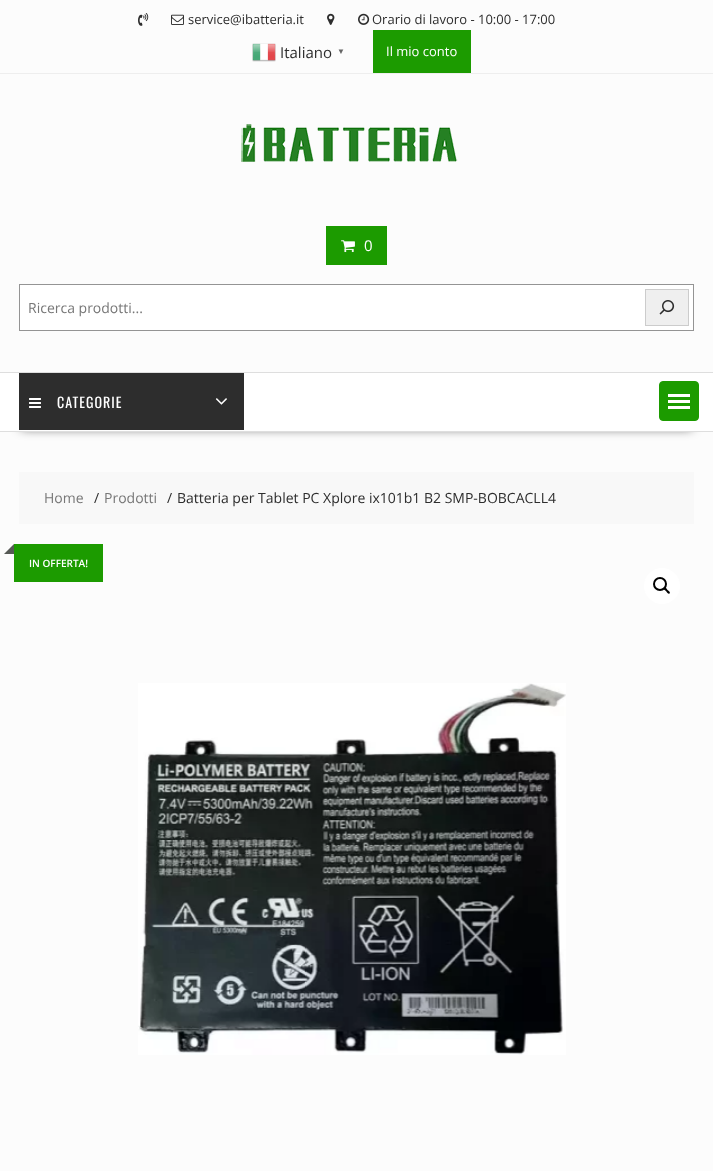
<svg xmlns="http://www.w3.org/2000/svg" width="713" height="1171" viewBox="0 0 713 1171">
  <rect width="100%" height="100%" fill="rgb(252,252,252)"/>
  <rect x="0" y="73" width="713" height="1" fill="rgb(238,238,238)"/>
  <image x="138" y="13" width="11" height="13" href="pic1.png"/>
  <image x="171" y="14" width="13" height="11" href="pic2.png"/>
  <text x="188" y="24" font-family="Open Sans" font-size="13" fill="rgb(45,45,45)">service@ibatteria.it</text>
  <image x="327" y="13" width="8" height="12" href="pic3.png"/>
  <image x="358" y="13" width="12" height="12" href="pic4.png"/>
  <text x="372" y="24" font-family="Open Sans" font-size="13" fill="rgb(45,45,45)">Orario di lavoro - 10:00 - 17:00</text>
  <image x="252" y="43" width="24" height="19" href="pic5.png"/>
  <text x="280" y="58" font-family="Open Sans" font-size="15" fill="rgb(45,45,45)">Italiano</text>
  <text x="337" y="54" font-family="Liberation Sans" font-size="8" font-weight="bold" fill="rgb(102,102,102)">▼</text>
  <rect x="373" y="30" width="98" height="43" fill="rgb(28,155,0)"/>
  <text x="386" y="56" font-family="Open Sans" font-size="13" fill="rgb(255,255,255)">Il mio conto</text>
  <image x="241" y="124" width="217" height="38" href="pic6.png"/>
  <rect x="326" y="226" width="61" height="39" fill="rgb(28,155,0)"/>
  <image x="341" y="240" width="14" height="13" href="pic7.png"/>
  <text x="364" y="251" font-family="Open Sans" font-size="15" fill="rgb(255,255,255)">0</text>
  <rect x="19.5" y="284.5" width="674" height="46" fill="rgb(255,255,255)" stroke="rgb(148,148,148)"/>
  <text x="28" y="313" font-family="Open Sans" font-size="14" fill="rgb(119,119,119)">Ricerca prodotti...</text>
  <rect x="645.5" y="289.5" width="43" height="36" fill="rgb(239,239,239)" stroke="rgb(204,204,204)"/>
  <image x="659" y="300" width="16" height="15" href="pic8.png"/>
  <rect x="21" y="410" width="671" height="18" fill="rgba(0,0,0,0.75)" filter="blur(5.5px)"/>
  <rect x="0" y="373" width="713" height="58" fill="rgb(255,255,255)"/>
  <rect x="0" y="372" width="713" height="1" fill="rgb(222,222,222)"/>
  <rect x="0" y="431" width="713" height="1" fill="rgb(222,222,222)"/>
  <rect x="19" y="373" width="225" height="57" fill="rgb(45,45,45)"/>
  <image x="29" y="398" width="12" height="10" href="pic9.png"/>
  <text x="57" y="408" font-family="Oswald" font-size="14" letter-spacing="1" fill="rgb(255,255,255)">CATEGORIE</text>
  <image x="215" y="398" width="12" height="7" href="pic10.png"/>
  <rect x="659.5" y="381.5" width="39" height="39" rx="3.5" fill="rgb(28,155,0)" stroke="rgb(28,155,0)"/>
  <rect x="668" y="406" width="22" height="3" fill="rgb(255,255,255)"/>
  <rect x="668" y="400" width="22" height="3" fill="rgb(255,255,255)"/>
  <rect x="668" y="394" width="22" height="3" fill="rgb(255,255,255)"/>
  <rect x="19" y="472" width="675" height="52" fill="rgb(248,248,248)"/>
  <text x="44" y="503" font-family="Open Sans" font-size="14" fill="rgb(119,119,119)">Home</text>
  <text x="94" y="503" font-family="Open Sans" font-size="14" fill="rgb(45,45,45)">/</text>
  <text x="104" y="503" font-family="Open Sans" font-size="14" fill="rgb(119,119,119)">Prodotti</text>
  <g font-family="Open Sans" font-size="14" fill="rgb(45,45,45)">
    <text x="167" y="503">/</text>
    <text x="177" y="503">Batteria per Tablet PC Xplore ix101b1 B2 SMP-BOBCACLL4</text>
  </g>
  <rect x="14" y="544" width="89" height="38" fill="rgb(28,155,0)"/>
  <path d="M14 544V554H4Z" fill="rgb(86,89,85)"/>
  <text x="29" y="567" font-family="Open Sans" font-size="10" font-weight="600" fill="rgb(255,255,255)">IN OFFERTA!</text>
  <circle cx="662" cy="586" r="18" fill="rgb(255,255,255)"/>
  <circle cx="660" cy="584" r="6" fill="none" stroke="rgb(0,0,0)" stroke-width="2"/>
  <path d="M664 587.5C665 586.5 667 589 667.5 590C668 590.5 671 592 669.5 593.5C668.5 594.5 666.5 592 666 591C665.5 590.5 662.5 589 664 587.5Z" fill="rgb(0,0,0)"/>
  <image x="138" y="683" width="428" height="372" href="pic11.png"/>
</svg>
